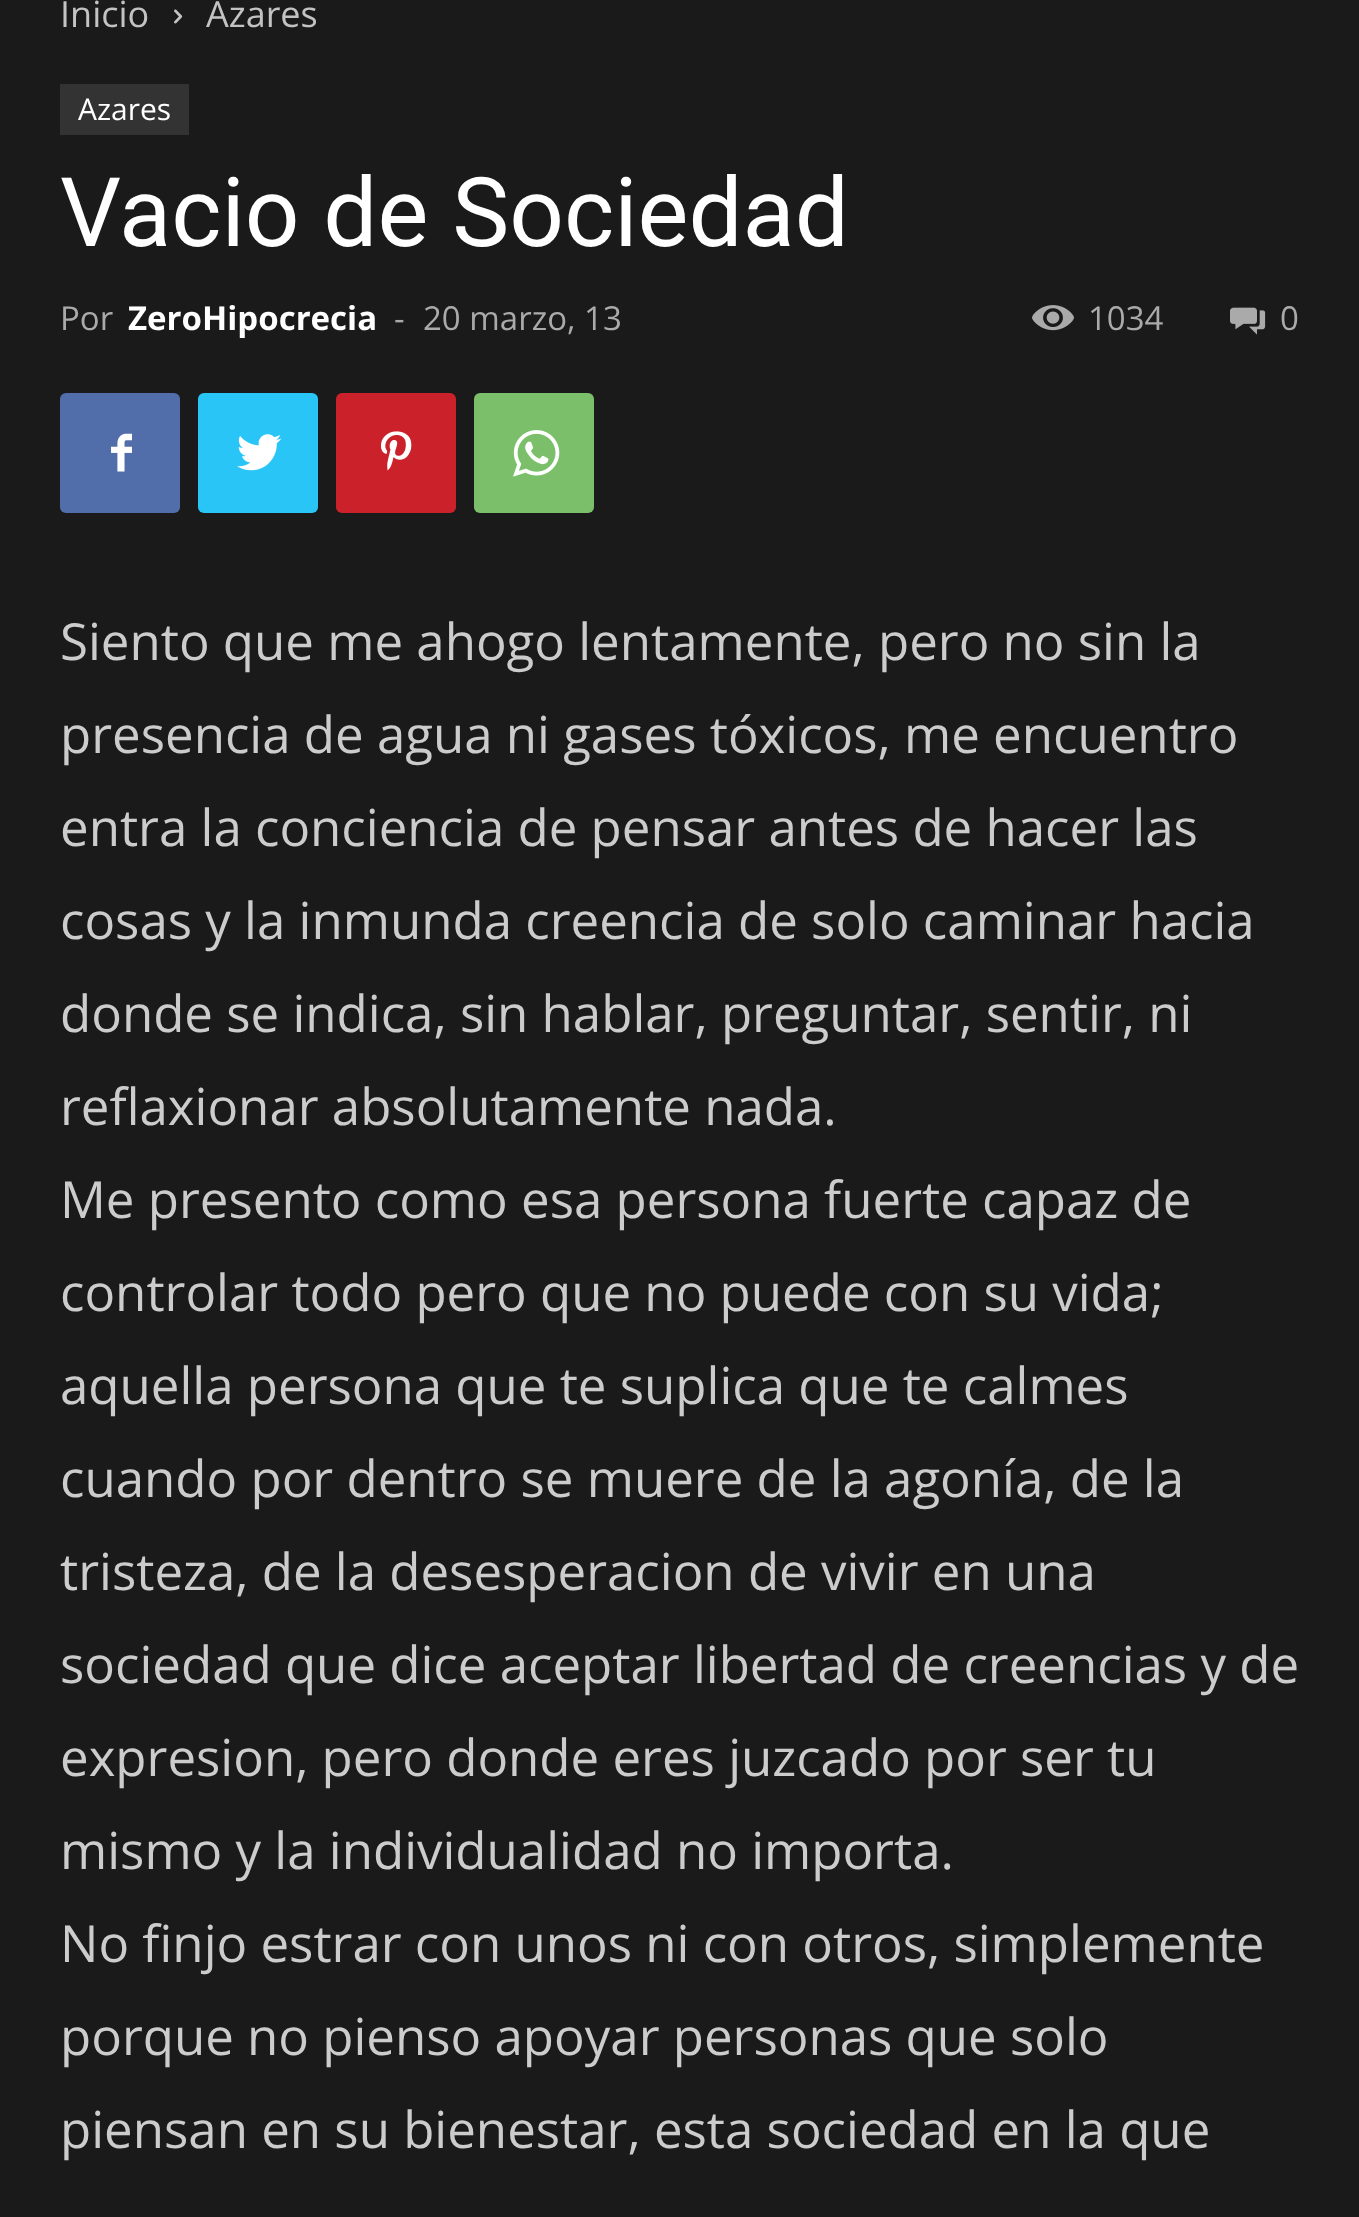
<svg xmlns="http://www.w3.org/2000/svg" width="1359" height="2217" viewBox="0 0 1359 2217">
  <rect width="100%" height="100%" fill="rgb(26,26,26)"/>
  <text x="60" y="27" font-family="Open Sans" font-size="36" fill="rgb(195,195,195)">Inicio</text>
  <image x="174" y="9" width="9" height="15" href="pic1.png"/>
  <text x="206" y="27" font-family="Open Sans" font-size="36" fill="rgb(195,195,195)">Azares</text>
  <rect x="60" y="84" width="129" height="51" fill="rgb(51,51,51)"/>
  <text x="78" y="120" font-family="Open Sans" font-size="30" fill="rgb(255,255,255)">Azares</text>
  <text x="60" y="246" font-family="Roboto" font-size="96" fill="rgb(255,255,255)">Vacio de Sociedad</text>
  <text x="60" y="330" font-family="Open Sans" font-size="33" fill="rgb(170,170,170)">Por</text>
  <text x="128" y="330" font-family="Open Sans" font-size="33" font-weight="bold" fill="rgb(255,255,255)">ZeroHipocrecia</text>
  <g font-family="Open Sans" font-size="33" fill="rgb(170,170,170)">
    <text x="394" y="330">-</text>
    <text x="423" y="330">20 marzo, 13</text>
  </g>
  <image x="1032" y="305" width="42" height="26" href="pic2.png"/>
  <text x="1088" y="330" font-family="Open Sans" font-size="33" fill="rgb(170,170,170)">1034</text>
  <image x="1230" y="307" width="36" height="28" href="pic3.png"/>
  <text x="1280" y="330" font-family="Open Sans" font-size="33" fill="rgb(170,170,170)">0</text>
  <rect x="60" y="393" width="120" height="120" rx="6" fill="rgb(81,110,171)"/>
  <image x="111" y="433" width="21" height="39" href="pic4.png"/>
  <rect x="198" y="393" width="120" height="120" rx="6" fill="rgb(41,197,246)"/>
  <image x="237" y="434" width="45" height="37" href="pic5.png"/>
  <rect x="336" y="393" width="120" height="120" rx="6" fill="rgb(202,33,42)"/>
  <image x="381" y="431" width="31" height="40" href="pic6.png"/>
  <rect x="474" y="393" width="120" height="120" rx="6" fill="rgb(123,191,106)"/>
  <image x="513" y="430" width="47" height="47" href="pic7.png"/>
  <g font-family="Open Sans" font-size="51" fill="rgb(204,204,204)">
    <text>
      <tspan x="60" y="660">Siento que me ahogo lentamente, pero no sin la</tspan>
      <tspan x="60" y="753">presencia de agua ni gases tóxicos, me encuentro</tspan>
      <tspan x="60" y="846">entra la conciencia de pensar antes de hacer las</tspan>
      <tspan x="60" y="939">cosas y la inmunda creencia de solo caminar hacia</tspan>
      <tspan x="60" y="1032">donde se indica, sin hablar, preguntar, sentir, ni</tspan>
      <tspan x="60" y="1125">reflaxionar absolutamente nada.</tspan>
      <tspan x="60" y="1218">Me presento como esa persona fuerte capaz de</tspan>
      <tspan x="60" y="1311">controlar todo pero que no puede con su vida;</tspan>
      <tspan x="60" y="1404">aquella persona que te suplica que te calmes</tspan>
      <tspan x="60" y="1497">cuando por dentro se muere de la agonía, de la</tspan>
      <tspan x="60" y="1590">tristeza, de la desesperacion de vivir en una</tspan>
      <tspan x="60" y="1683">sociedad que dice aceptar libertad de creencias y de</tspan>
      <tspan x="60" y="1776">expresion, pero donde eres juzcado por ser tu</tspan>
      <tspan x="60" y="1869">mismo y la individualidad no importa.</tspan>
      <tspan x="60" y="1962">No finjo estrar con unos ni con otros, simplemente</tspan>
      <tspan x="60" y="2055">porque no pienso apoyar personas que solo</tspan>
      <tspan x="60" y="2148">piensan en su bienestar, esta sociedad en la que</tspan>
    </text>
  </g>
</svg>
